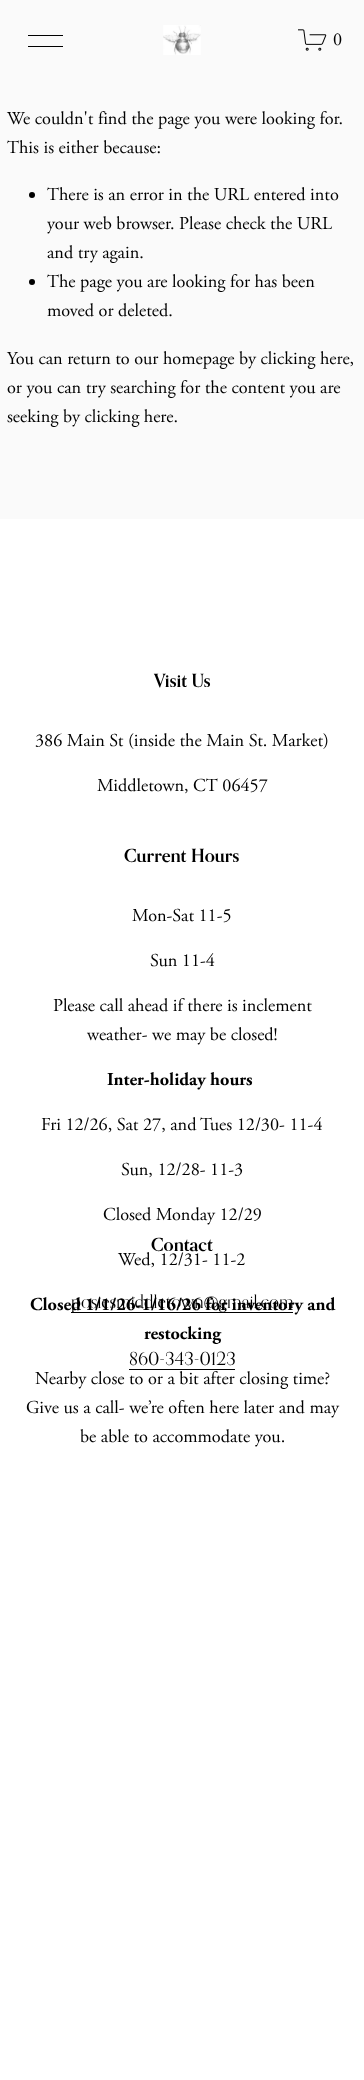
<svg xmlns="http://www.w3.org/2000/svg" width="364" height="2080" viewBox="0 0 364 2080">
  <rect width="100%" height="100%" fill="rgb(250,250,250)"/>
  <rect x="28" y="35" width="35" height="1" fill="rgb(0,0,0)"/>
  <rect x="28" y="46" width="35" height="1" fill="rgb(0,0,0)"/>
  <image x="163" y="25" width="38" height="30" href="pic1.png"/>
  <image x="298" y="29" width="29" height="22" href="pic2.png"/>
  <g font-family="Adobe Garamond" font-size="18.2" fill="rgb(0,0,0)">
    <text x="333" y="45">0</text>
    <text>
      <tspan x="7" y="124">We couldn't find the page you were looking for.</tspan>
      <tspan x="7" y="153">This is either because:</tspan>
    </text>
  </g>
  <circle cx="32" cy="195" r="3" fill="rgb(0,0,0)"/>
  <g font-family="Adobe Garamond" font-size="18.2" fill="rgb(0,0,0)">
    <text>
      <tspan x="47" y="200">There is an error in the URL entered into</tspan>
      <tspan x="47" y="229">your web browser. Please check the URL</tspan>
      <tspan x="47" y="258">and try again.</tspan>
    </text>
  </g>
  <circle cx="32" cy="282" r="3" fill="rgb(0,0,0)"/>
  <g font-family="Adobe Garamond" font-size="18.2" fill="rgb(0,0,0)">
    <text>
      <tspan x="47" y="287">The page you are looking for has been</tspan>
      <tspan x="47" y="316">moved or deleted.</tspan>
    </text>
    <text>
      <tspan x="7" y="364">You can return to our homepage by clicking here,</tspan>
      <tspan x="7" y="393">or you can try searching for the content you are</tspan>
      <tspan x="7" y="422">seeking by clicking here.</tspan>
    </text>
  </g>
  <rect x="0" y="519" width="364" height="1561" fill="rgb(255,255,255)"/>
  <text x="154" y="687" font-family="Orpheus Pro" font-size="18.2" font-weight="bold" fill="rgb(0,0,0)">Visit Us</text>
  <g font-family="Adobe Garamond" font-size="18.2" fill="rgb(0,0,0)">
    <text x="35" y="746">386 Main St (inside the Main St. Market)</text>
    <text x="97" y="791">Middletown, CT 06457</text>
  </g>
  <text x="124" y="862" font-family="Orpheus Pro" font-size="18.2" font-weight="bold" fill="rgb(0,0,0)">Current Hours</text>
  <g font-family="Adobe Garamond" font-size="18.2" fill="rgb(0,0,0)">
    <text x="132" y="921">Mon-Sat 11-5</text>
    <text x="150" y="966">Sun 11-4</text>
    <text x="53" y="1011">Please call ahead if there is inclement</text>
    <text x="87" y="1040">weather- we may be closed!</text>
  </g>
  <text x="107" y="1085" font-family="Adobe Garamond" font-size="18.2" font-weight="bold" fill="rgb(0,0,0)">Inter-holiday hours</text>
  <g font-family="Adobe Garamond" font-size="18.2" fill="rgb(0,0,0)">
    <text x="41" y="1130">Fri 12/26, Sat 27, and Tues 12/30- 11-4</text>
    <text x="121" y="1175">Sun, 12/28- 11-3</text>
    <text x="103" y="1220">Closed Monday 12/29</text>
    <text x="118" y="1265">Wed, 12/31- 11-2</text>
  </g>
  <g font-family="Adobe Garamond" font-size="18.2" font-weight="bold" fill="rgb(0,0,0)">
    <text x="30" y="1310">Closed 1/1/26-1/16/26 for inventory and</text>
    <text x="144" y="1339">restocking</text>
  </g>
  <g font-family="Adobe Garamond" font-size="18.2" fill="rgb(0,0,0)">
    <text x="35" y="1384">Nearby close to or a bit after closing time?</text>
    <text x="26" y="1413">Give us a call- we’re often here later and may</text>
    <text x="80" y="1442">be able to accommodate you.</text>
  </g>
  <text x="151" y="1251" font-family="Orpheus Pro" font-size="18.2" font-weight="bold" fill="rgb(0,0,0)">Contact</text>
  <rect x="71" y="1312" width="222" height="1" fill="rgb(0,0,0)"/>
  <g font-family="Orpheus Pro" font-size="18.2" fill="rgb(0,0,0)">
    <text x="71" y="1308">posiesmiddletown@gmail.com</text>
    <text x="129" y="1365">860-343-0123</text>
  </g>
  <rect x="129" y="1369" width="106" height="1" fill="rgb(0,0,0)"/>
</svg>
